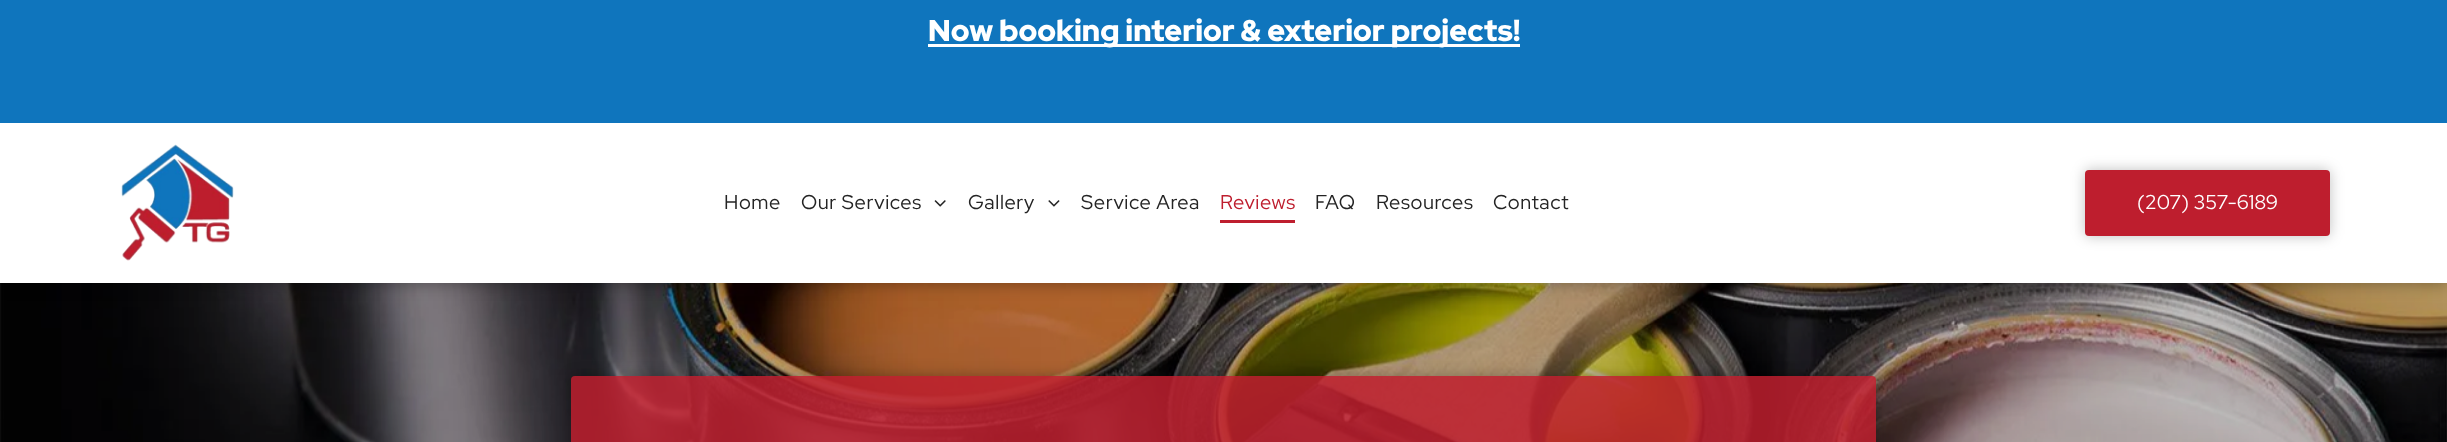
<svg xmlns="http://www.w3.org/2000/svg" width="2447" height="442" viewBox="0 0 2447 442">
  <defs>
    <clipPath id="clip1"><path d="M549 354H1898V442H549ZM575 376H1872C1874 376 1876 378 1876 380V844C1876 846 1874 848 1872 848H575C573 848 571 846 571 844V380C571 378 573 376 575 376Z" clip-rule="evenodd"/></clipPath>
  </defs>
  <rect width="100%" height="100%" fill="rgb(255,255,255)"/>
  <image x="0" y="283" width="2447" height="159" href="pic4.png"/>
  <rect x="0" y="4" width="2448" height="282" fill="rgba(0,0,0,0.25)" filter="blur(7px)"/>
  <rect x="0" y="123" width="2447" height="160" fill="rgb(255,255,255)"/>
  <rect x="0" y="0" width="2447" height="123" fill="rgb(15,117,189)"/>
  <rect x="928" y="44" width="592" height="3" fill="rgb(255,255,255)"/>
  <text x="928" y="41" font-family="Red Hat Display" font-size="30" font-weight="900" fill="rgb(255,255,255)">Now booking interior &amp; exterior projects!</text>
  <image x="121" y="144" width="113" height="117" href="pic1.png"/>
  <g font-family="Red Hat Display" font-size="20" letter-spacing="0.6" fill="rgb(36,36,36)">
    <text x="724" y="209">Home</text>
    <text x="801" y="209">Our Services</text>
  </g>
  <image x="934" y="200" width="12" height="7" href="pic2.png"/>
  <text x="968" y="209" font-family="Red Hat Display" font-size="20" letter-spacing="0.6" fill="rgb(36,36,36)">Gallery</text>
  <image x="1048" y="200" width="12" height="7" href="pic3.png"/>
  <text x="1081" y="209" font-family="Red Hat Display" font-size="20" letter-spacing="0.6" fill="rgb(36,36,36)">Service Area</text>
  <text x="1220" y="209" font-family="Red Hat Display" font-size="20" letter-spacing="0.6" fill="rgb(190,30,46)">Reviews</text>
  <rect x="1220" y="220" width="75" height="3" fill="rgb(190,30,46)"/>
  <g font-family="Red Hat Display" font-size="20" letter-spacing="0.6" fill="rgb(36,36,36)">
    <text x="1315" y="209">FAQ</text>
    <text x="1376" y="209">Resources</text>
    <text x="1493" y="209">Contact</text>
  </g>
  <rect x="2085" y="170" width="245" height="66" rx="4" fill="rgba(0,0,0,0.25)" filter="blur(7px)"/>
  <rect x="2085" y="170" width="245" height="66" rx="4" fill="rgb(190,30,46)"/>
  <text x="2137" y="209" font-family="Red Hat Display" font-size="20" fill="rgb(255,255,255)">(207) 357-6189</text>
  <g clip-path="url(#clip1)">
    <rect x="571" y="376" width="1305" height="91" rx="4" fill="rgba(0,0,0,0.25)" filter="blur(7px)"/>
  </g>
  <rect x="571" y="376" width="1305" height="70" rx="4" fill="rgba(190,30,46,0.85)"/>
</svg>
